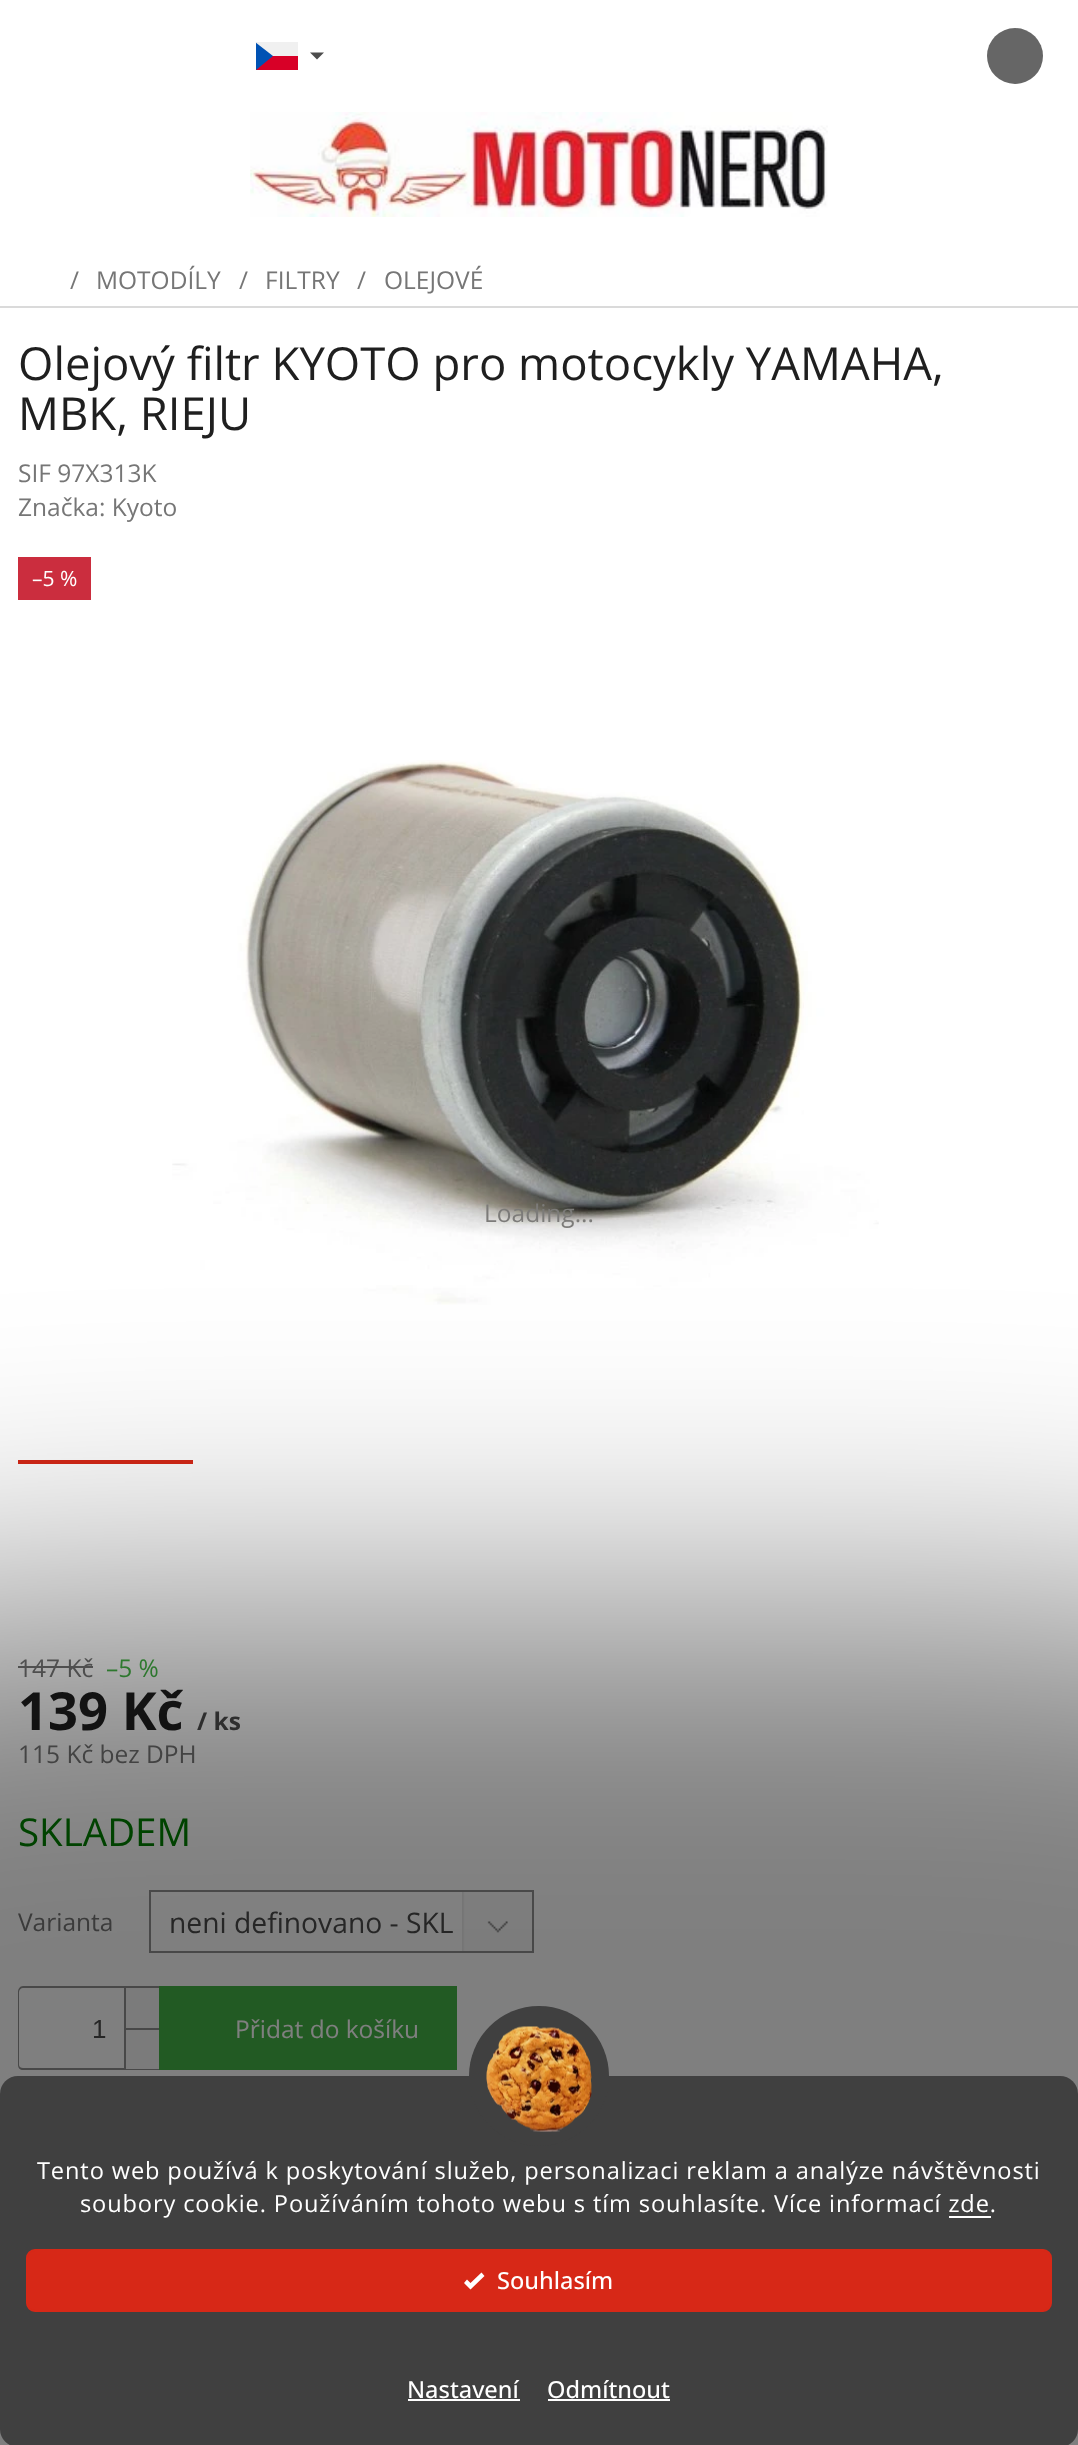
<svg xmlns="http://www.w3.org/2000/svg" width="1078" height="2445" viewBox="0 0 1078 2445">
  <rect width="100%" height="100%" fill="rgb(255,255,255)"/>
  <rect x="256" y="42" width="17" height="28" fill="rgb(0,82,180)"/>
  <path d="M298 56V70H256L273 56Z" fill="rgb(216,0,39)"/>
  <path d="M298 42V56H273L255 42Z" fill="rgb(240,240,240)"/>
  <path d="M310 52.5H324L317 59.5Z" fill="rgb(77,77,77)"/>
  <circle cx="1015" cy="56" r="28" fill="rgb(102,102,102)"/>
  <image x="250" y="112" width="578" height="105" href="pic1.png"/>
  <rect x="0" y="306" width="1078" height="2" fill="rgb(218,218,218)"/>
  <g font-family="Open Sans" font-size="24.5" fill="rgb(118,118,118)">
    <text x="70" y="289">/</text>
    <text x="96" y="289">MOTODÍLY</text>
    <text x="239" y="289">/</text>
    <text x="265" y="289">FILTRY</text>
    <text x="357" y="289">/</text>
    <text x="384" y="289">OLEJOVÉ</text>
  </g>
  <g font-family="Open Sans" font-size="45.5" fill="rgb(31,31,31)">
    <text>
      <tspan x="18" y="380">Olejový filtr KYOTO pro motocykly YAMAHA,</tspan>
      <tspan x="18" y="430">MBK, RIEJU</tspan>
    </text>
  </g>
  <g font-family="Open Sans" font-size="24.5" fill="rgb(118,118,118)">
    <text>
      <tspan x="18" y="482">SIF 97X313K</tspan>
      <tspan x="18" y="516">Značka: Kyoto</tspan>
    </text>
  </g>
  <rect x="18" y="557" width="73" height="43" fill="rgb(203,45,62)"/>
  <text x="32" y="586" font-family="Open Sans" font-size="21" fill="rgb(255,255,255)">–5 %</text>
  <image x="172" y="760" width="707" height="545" href="pic2.png"/>
  <text x="484" y="1222" font-family="Open Sans" font-size="24.5" fill="rgb(124,123,121)">Loading...</text>
  <rect x="18" y="1460" width="175" height="4" fill="rgb(215,40,23)"/>
  <text x="18" y="1677" font-family="Open Sans" font-size="24.5" fill="rgb(118,118,118)">147 Kč</text>
  <rect x="18" y="1666" width="75" height="2" fill="rgb(118,118,118)"/>
  <text x="106" y="1677" font-family="Open Sans" font-size="24.5" fill="rgb(69,181,70)">–5 %</text>
  <text x="18" y="1730" font-family="Open Sans" font-size="52.5" font-weight="bold" fill="rgb(31,31,31)">139 Kč</text>
  <text x="197" y="1730" font-family="Open Sans" font-size="24.5" font-weight="bold" fill="rgb(77,77,77)">/ ks</text>
  <text x="18" y="1763" font-family="Open Sans" font-size="24.5" fill="rgb(118,118,118)">115 Kč bez DPH</text>
  <text x="18" y="1846" font-family="Open Sans" font-size="38.5" fill="rgb(0,128,0)">SKLADEM</text>
  <text x="18" y="1931" font-family="Open Sans" font-size="24.5" fill="rgb(118,118,118)">Varianta</text>
  <image x="462" y="1892" width="70" height="59" href="pic3.png"/>
  <rect x="150" y="1891" width="383" height="61" fill="none" stroke="rgb(145,145,145)" stroke-width="2"/>
  <text x="169" y="1933" font-family="Open Sans" font-size="28.25" fill="rgb(77,77,77)">neni definovano - SKL</text>
  <path d="M23 1986H159V2070H23C20 2070 18 2068 18 2065V1992C18 1989 20 1986 23 1986ZM23 1988H159V2068H23C21 2068 19 2067 19 2065V1992C19 1990 21 1988 23 1988Z" fill="rgb(145,145,145)" fill-rule="evenodd"/>
  <text x="92" y="2038" font-family="Liberation Sans" font-size="26" fill="rgb(77,77,77)">1</text>
  <rect x="126" y="1988" width="33" height="40" fill="rgb(246,246,246)"/>
  <rect x="124" y="1988" width="2" height="40" fill="rgb(145,145,145)"/>
  <rect x="126" y="2030" width="33" height="39" fill="rgb(246,246,246)"/>
  <rect x="124" y="2028" width="35" height="2" fill="rgb(145,145,145)"/>
  <rect x="124" y="2028" width="2" height="41" fill="rgb(145,145,145)"/>
  <rect x="159" y="1986" width="298" height="84" fill="rgb(69,181,70)"/>
  <text x="235" y="2038" font-family="Open Sans" font-size="24.5" fill="rgb(255,255,255)">Přidat do košíku</text>
  <rect x="-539" y="1607" width="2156" height="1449" rx="557" fill="rgba(0,0,0,0.5)" filter="blur(140px)"/>
  <rect x="0" y="2076" width="1078" height="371" rx="18" fill="rgb(64,64,64)"/>
  <circle cx="539" cy="2076" r="70" fill="rgb(64,64,64)"/>
  <image x="486" y="2026" width="106" height="106" href="pic4.png"/>
  <g font-family="Open Sans" font-size="23.6" letter-spacing="0.88" fill="rgb(255,255,255)">
    <text x="37" y="2179">Tento web používá k poskytování služeb, personalizaci reklam a analýze návštěvnosti</text>
    <text x="80" y="2212">soubory cookie. Používáním tohoto webu s tím souhlasíte. Více informací zde.</text>
  </g>
  <rect x="949" y="2216" width="42" height="2" fill="rgb(255,255,255)"/>
  <rect x="27" y="2250" width="1024" height="61" rx="8" fill="rgb(215,40,23)" stroke="rgb(215,40,23)" stroke-width="2"/>
  <path d="M481.5 2272.5L470.5 2283L467 2279.5L464 2283L470.5 2289.5L484.5 2276Z" fill="rgb(255,255,255)"/>
  <g font-family="Open Sans" font-size="23.6" font-weight="500" fill="rgb(255,255,255)">
    <text x="497" y="2289">Souhlasím</text>
    <text x="407" y="2398">Nastavení</text>
  </g>
  <rect x="408" y="2399" width="112" height="2" fill="rgb(255,255,255)"/>
  <text x="547" y="2398" font-family="Open Sans" font-size="23.6" font-weight="500" fill="rgb(255,255,255)">Odmítnout</text>
  <rect x="548" y="2399" width="122" height="2" fill="rgb(255,255,255)"/>
</svg>
